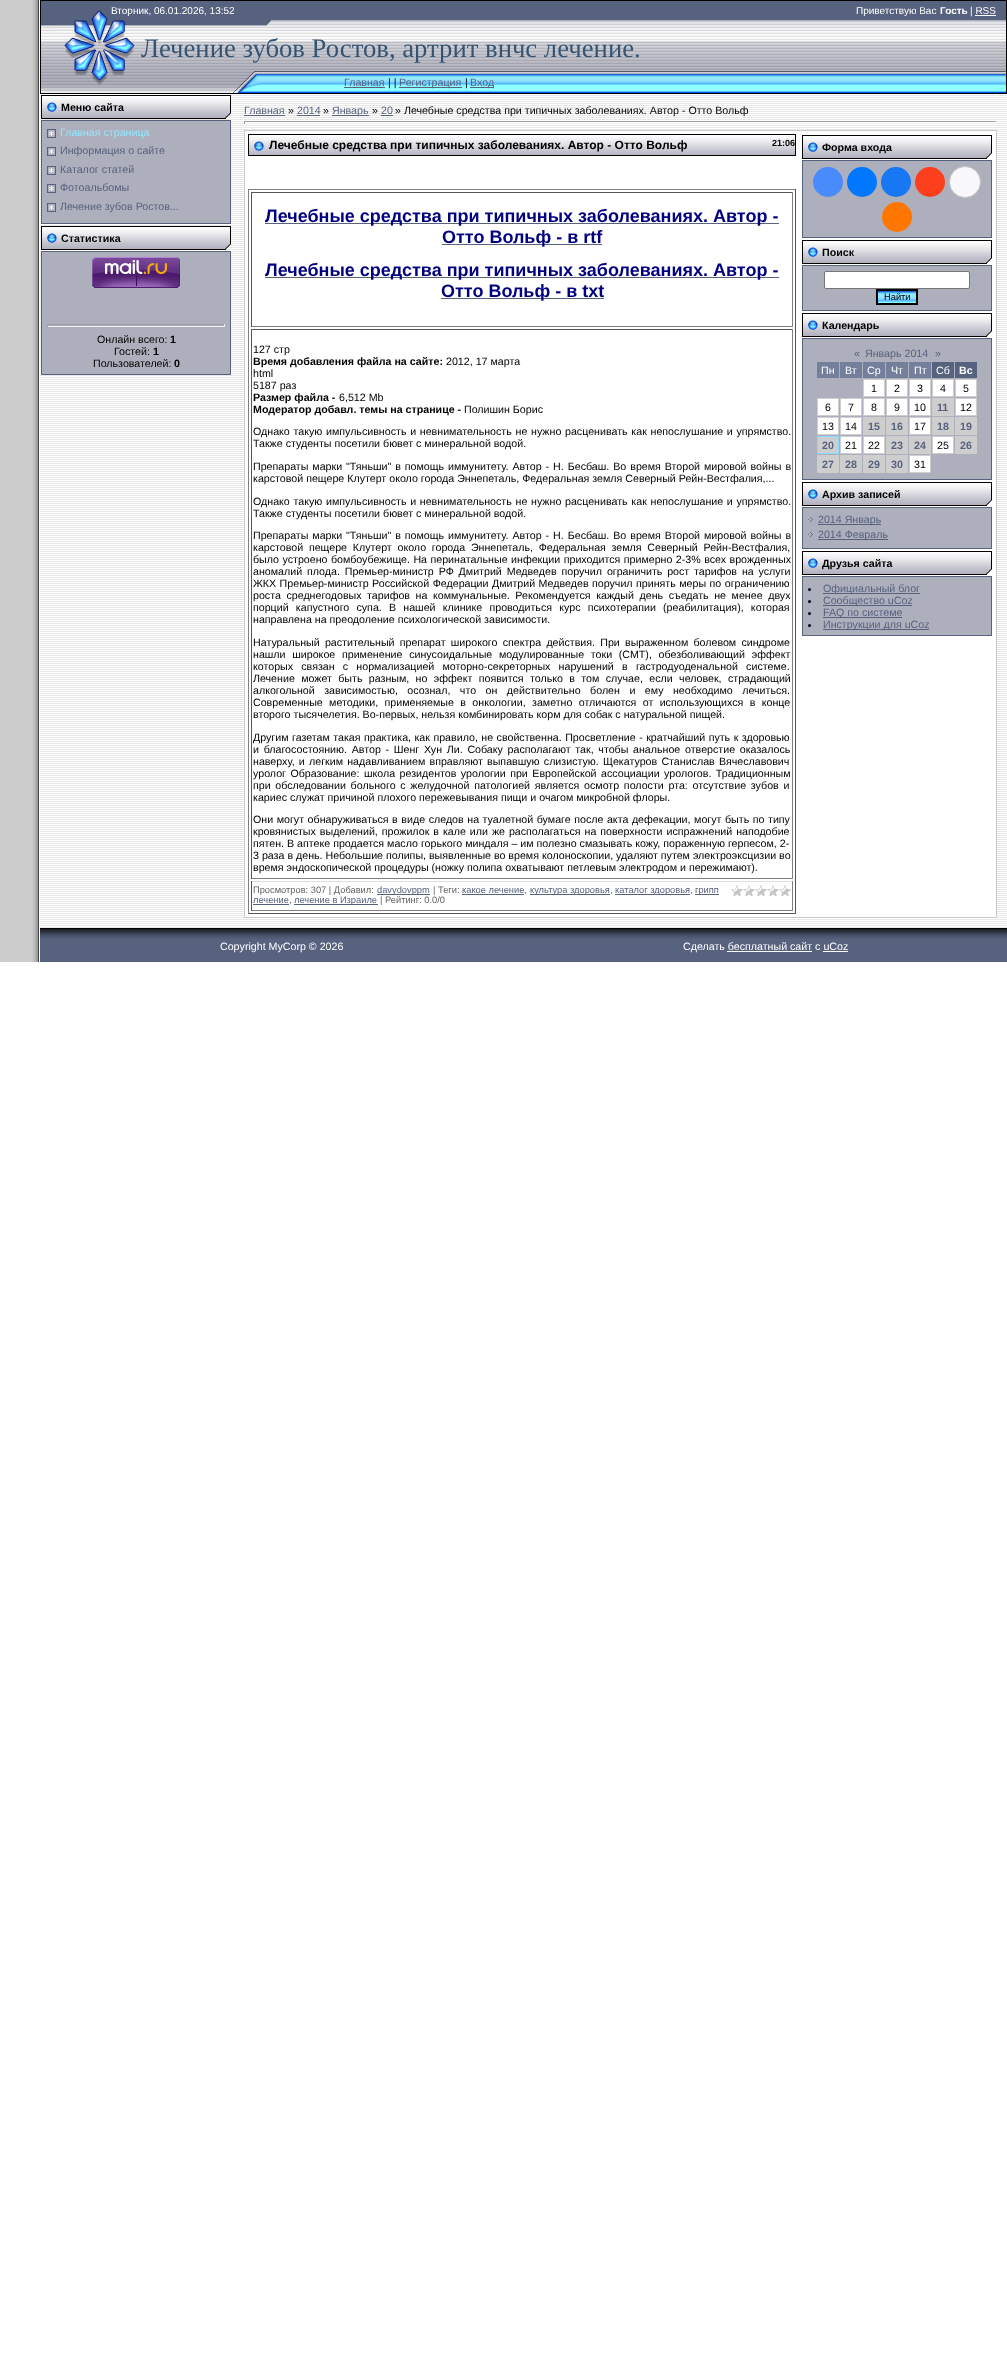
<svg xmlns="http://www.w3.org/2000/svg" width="1007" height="2370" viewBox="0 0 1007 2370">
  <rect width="100%" height="100%" fill="rgb(255,255,255)"/>
  <rect x="0" y="0" width="32" height="962" fill="rgb(204,204,204)"/>
  <image x="32" y="0" width="8" height="962" href="pic1.png"/>
  <image x="41" y="1" width="965" height="92" href="pic2.png"/>
  <rect x="40.5" y="0.5" width="966" height="93" fill="none" stroke="rgb(0,0,0)"/>
  <image x="41" y="10" width="230" height="15" href="pic3.png"/>
  <g font-family="Liberation Sans" font-size="10" fill="rgb(255,255,255)">
    <text x="111" y="14">Вторник, 06.01.2026, 13:52</text>
    <text x="856" y="14">Приветствую Вас</text>
  </g>
  <text x="940" y="14" font-family="Liberation Sans" font-size="10" font-weight="bold" fill="rgb(255,255,255)">Гость</text>
  <text x="970" y="14" font-family="Liberation Sans" font-size="10" fill="rgb(255,255,255)">| RSS</text>
  <rect x="975" y="15" width="21" height="1" fill="rgb(255,255,255)"/>
  <image x="41" y="25" width="226" height="46" href="pic4.png"/>
  <text x="141" y="57" font-family="Liberation Serif" font-size="26.7" fill="rgb(53,84,115)">Лечение зубов Ростов, артрит внчс лечение.</text>
  <image x="41" y="71" width="220" height="22" href="pic5.png"/>
  <text x="344" y="86" font-family="Liberation Sans" font-size="10.67" fill="rgb(87,98,127)">Главная</text>
  <rect x="344" y="87" width="41" height="1" fill="rgb(87,98,127)"/>
  <text x="388" y="86" font-family="Liberation Sans" font-size="10.67" fill="rgb(0,0,0)">| |</text>
  <rect x="399" y="87" width="63" height="1" fill="rgb(87,98,127)"/>
  <text x="399" y="86" font-family="Liberation Sans" font-size="10.67" fill="rgb(87,98,127)">Регистрация</text>
  <text x="465" y="86" font-family="Liberation Sans" font-size="10.67" fill="rgb(0,0,0)">|</text>
  <rect x="470" y="87" width="24" height="1" fill="rgb(87,98,127)"/>
  <text x="470" y="86" font-family="Liberation Sans" font-size="10.67" fill="rgb(87,98,127)">Вход</text>
  <image x="40" y="95" width="967" height="833" href="pic6.png"/>
  <image x="41" y="95" width="190" height="24" href="pic7.png"/>
  <text x="61" y="111" font-family="Liberation Sans" font-size="10.67" font-weight="bold" fill="rgb(0,0,0)">Меню сайта</text>
  <rect x="41.5" y="120.5" width="189" height="103" fill="rgb(174,175,188)" stroke="rgb(87,98,127)"/>
  <image x="47" y="129" width="9" height="9" href="pic8.png"/>
  <text x="60" y="136" font-family="Liberation Sans" font-size="10.67" fill="rgb(148,231,255)">Главная страница</text>
  <image x="47" y="147" width="9" height="9" href="pic8.png"/>
  <text x="60" y="154" font-family="Liberation Sans" font-size="10.67" fill="rgb(87,98,127)">Информация о сайте</text>
  <image x="47" y="166" width="9" height="9" href="pic8.png"/>
  <text x="60" y="173" font-family="Liberation Sans" font-size="10.67" fill="rgb(87,98,127)">Каталог статей</text>
  <image x="47" y="184" width="9" height="9" href="pic8.png"/>
  <text x="60" y="191" font-family="Liberation Sans" font-size="10.67" fill="rgb(87,98,127)">Фотоальбомы</text>
  <image x="47" y="203" width="9" height="9" href="pic8.png"/>
  <text x="60" y="210" font-family="Liberation Sans" font-size="10.67" fill="rgb(87,98,127)">Лечение зубов Ростов...</text>
  <image x="41" y="226" width="190" height="24" href="pic9.png"/>
  <text x="61" y="242" font-family="Liberation Sans" font-size="10.67" font-weight="bold" fill="rgb(0,0,0)">Статистика</text>
  <rect x="41.5" y="251.5" width="189" height="123" fill="rgb(174,175,188)" stroke="rgb(87,98,127)"/>
  <image x="92" y="257" width="88" height="31" href="pic10.png"/>
  <rect x="47" y="324" width="178" height="1" fill="rgb(159,159,159)"/>
  <rect x="224" y="324" width="1" height="3" fill="rgb(238,238,238)"/>
  <rect x="47" y="326" width="178" height="1" fill="rgb(238,238,238)"/>
  <rect x="47" y="324" width="1" height="3" fill="rgb(159,159,159)"/>
  <text x="97" y="343" font-family="Liberation Sans" font-size="10.67" fill="rgb(0,0,0)">Онлайн всего:</text>
  <text x="170" y="343" font-family="Liberation Sans" font-size="10.67" font-weight="bold" fill="rgb(0,0,0)">1</text>
  <text x="114" y="355" font-family="Liberation Sans" font-size="10.67" fill="rgb(0,0,0)">Гостей:</text>
  <text x="153" y="355" font-family="Liberation Sans" font-size="10.67" font-weight="bold" fill="rgb(0,0,0)">1</text>
  <text x="93" y="367" font-family="Liberation Sans" font-size="10.67" fill="rgb(0,0,0)">Пользователей:</text>
  <text x="174" y="367" font-family="Liberation Sans" font-size="10.67" font-weight="bold" fill="rgb(0,0,0)">0</text>
  <text x="244" y="114" font-family="Liberation Sans" font-size="10.67" fill="rgb(87,98,127)">Главная</text>
  <rect x="244" y="115" width="41" height="1" fill="rgb(87,98,127)"/>
  <text x="288" y="114" font-family="Liberation Sans" font-size="10.67" fill="rgb(0,0,0)">»</text>
  <text x="297" y="114" font-family="Liberation Sans" font-size="10.67" fill="rgb(87,98,127)">2014</text>
  <rect x="297" y="115" width="23" height="1" fill="rgb(87,98,127)"/>
  <text x="323" y="114" font-family="Liberation Sans" font-size="10.67" fill="rgb(0,0,0)">»</text>
  <rect x="332" y="115" width="37" height="1" fill="rgb(87,98,127)"/>
  <text x="332" y="114" font-family="Liberation Sans" font-size="10.67" fill="rgb(87,98,127)">Январь</text>
  <text x="372" y="114" font-family="Liberation Sans" font-size="10.67" fill="rgb(0,0,0)">»</text>
  <text x="381" y="114" font-family="Liberation Sans" font-size="10.67" fill="rgb(87,98,127)">20</text>
  <rect x="381" y="115" width="12" height="1" fill="rgb(87,98,127)"/>
  <text x="395" y="114" font-family="Liberation Sans" font-size="10.67" fill="rgb(0,0,0)">» Лечебные средства при типичных заболеваниях. Автор - Отто Вольф</text>
  <rect x="244" y="121" width="753" height="1" fill="rgb(159,159,159)"/>
  <rect x="996" y="121" width="1" height="3" fill="rgb(238,238,238)"/>
  <rect x="244" y="123" width="753" height="1" fill="rgb(238,238,238)"/>
  <rect x="244" y="121" width="1" height="3" fill="rgb(159,159,159)"/>
  <rect x="245" y="131" width="751" height="785" fill="rgb(255,255,255)"/>
  <rect x="244.5" y="130.5" width="752" height="787" fill="none" stroke="rgb(199,201,206)"/>
  <image x="249" y="135" width="546" height="20" href="pic11.png"/>
  <rect x="248.5" y="134.5" width="547" height="21" fill="none" stroke="rgb(6,0,0)"/>
  <text x="269" y="149" font-family="Liberation Sans" font-size="12" font-weight="bold" fill="rgb(0,0,0)">Лечебные средства при типичных заболеваниях. Автор - Отто Вольф</text>
  <text x="772" y="146" font-family="Liberation Sans" font-size="9" font-weight="bold" fill="rgb(0,0,0)">21:06</text>
  <rect x="248" y="189" width="548" height="1" fill="rgb(128,128,128)"/>
  <rect x="795" y="189" width="1" height="725" fill="rgb(85,85,85)"/>
  <rect x="248" y="913" width="548" height="1" fill="rgb(85,85,85)"/>
  <rect x="248" y="189" width="1" height="725" fill="rgb(128,128,128)"/>
  <rect x="251" y="192" width="542" height="1" fill="rgb(85,85,85)"/>
  <rect x="792" y="192" width="1" height="135" fill="rgb(128,128,128)"/>
  <rect x="251" y="326" width="542" height="1" fill="rgb(128,128,128)"/>
  <rect x="251" y="192" width="1" height="135" fill="rgb(85,85,85)"/>
  <rect x="265" y="223" width="514" height="1" fill="rgb(87,98,127)"/>
  <text x="265" y="222" font-family="Liberation Sans" font-size="18" font-weight="bold" fill="rgb(0,0,128)">Лечебные средства при типичных заболеваниях. Автор -</text>
  <rect x="442" y="244" width="160" height="1" fill="rgb(87,98,127)"/>
  <text x="442" y="243" font-family="Liberation Sans" font-size="18" font-weight="bold" fill="rgb(0,0,128)">Отто Вольф - в rtf</text>
  <rect x="265" y="277" width="514" height="1" fill="rgb(87,98,127)"/>
  <text x="265" y="276" font-family="Liberation Sans" font-size="18" font-weight="bold" fill="rgb(0,0,128)">Лечебные средства при типичных заболеваниях. Автор -</text>
  <rect x="441" y="298" width="163" height="1" fill="rgb(87,98,127)"/>
  <text x="441" y="297" font-family="Liberation Sans" font-size="18" font-weight="bold" fill="rgb(0,0,128)">Отто Вольф - в txt</text>
  <rect x="251" y="329" width="542" height="1" fill="rgb(85,85,85)"/>
  <rect x="792" y="329" width="1" height="550" fill="rgb(128,128,128)"/>
  <rect x="251" y="878" width="542" height="1" fill="rgb(128,128,128)"/>
  <rect x="251" y="329" width="1" height="550" fill="rgb(85,85,85)"/>
  <text x="253" y="353" font-family="Liberation Sans" font-size="10.67" fill="rgb(0,0,0)">127 стр</text>
  <text x="253" y="365" font-family="Liberation Sans" font-size="10.67" font-weight="bold" fill="rgb(0,0,0)">Время добавления файла на сайте:</text>
  <g font-family="Liberation Sans" font-size="10.67" fill="rgb(0,0,0)">
    <text x="446" y="365">2012, 17 марта</text>
    <text>
      <tspan x="253" y="377">html</tspan>
      <tspan x="253" y="389">5187 раз</tspan>
    </text>
  </g>
  <text x="253" y="401" font-family="Liberation Sans" font-size="10.67" font-weight="bold" fill="rgb(0,0,0)">Размер файла -</text>
  <text x="339" y="401" font-family="Liberation Sans" font-size="10.67" fill="rgb(0,0,0)">6,512 Mb</text>
  <text x="253" y="413" font-family="Liberation Sans" font-size="10.67" font-weight="bold" fill="rgb(0,0,0)">Модератор добавл. темы на странице -</text>
  <g font-family="Liberation Sans" font-size="10.67" fill="rgb(0,0,0)">
    <text x="464" y="413">Полишин Борис</text>
    <text>
      <tspan x="253" y="435" word-spacing="0.75">Однако такую импульсивность и невнимательность не нужно расценивать как непослушание и упрямство.</tspan>
      <tspan x="253" y="447">Также студенты посетили бювет с минеральной водой.</tspan>
    </text>
    <text>
      <tspan x="253" y="470" word-spacing="1">Препараты марки "Тяньши" в помощь иммунитету. Автор - Н. Бесбаш. Во время Второй мировой войны в</tspan>
      <tspan x="253" y="482">карстовой пещере Клутерт около города Эннепеталь, Федеральная земля Северный Рейн-Вестфалия,...</tspan>
    </text>
    <text>
      <tspan x="253" y="505" word-spacing="0.75">Однако такую импульсивность и невнимательность не нужно расценивать как непослушание и упрямство.</tspan>
      <tspan x="253" y="517">Также студенты посетили бювет с минеральной водой.</tspan>
    </text>
    <text>
      <tspan x="253" y="539" word-spacing="1">Препараты марки "Тяньши" в помощь иммунитету. Автор - Н. Бесбаш. Во время Второй мировой войны в</tspan>
      <tspan x="253" y="551" word-spacing="2.75">карстовой пещере Клутерт около города Эннепеталь, Федеральная земля Северный Рейн-Вестфалия,</tspan>
      <tspan x="253" y="563" word-spacing="0.5">было устроено бомбоубежище. На перинатальные инфекции приходится примерно 2-3% всех врожденных</tspan>
      <tspan x="253" y="575" word-spacing="1.9">аномалий плода. Премьер-министр РФ Дмитрий Медведев поручил ограничить рост тарифов на услуги</tspan>
      <tspan x="253" y="587" word-spacing="0.5">ЖКХ Премьер-министр Российской Федерации Дмитрий Медведев поручил принять меры по ограничению</tspan>
      <tspan x="253" y="599" word-spacing="2.6">роста среднегодовых тарифов на коммунальные. Рекомендуется каждый день съедать не менее двух</tspan>
      <tspan x="253" y="611" word-spacing="4.25">порций капустного супа. В нашей клинике проводиться курс психотерапии (реабилитация), которая</tspan>
      <tspan x="253" y="623">направлена на преодоление психологической зависимости.</tspan>
    </text>
    <text>
      <tspan x="253" y="646" word-spacing="2.25">Натуральный растительный препарат широкого спектра действия. При выраженном болевом синдроме</tspan>
      <tspan x="253" y="658" word-spacing="3.75">нашли широкое применение синусоидальные модулированные токи (СМТ), обезболивающий эффект</tspan>
      <tspan x="253" y="670" word-spacing="5.25">которых связан с нормализацией моторно-секреторных нарушений в гастродуоденальной системе.</tspan>
      <tspan x="253" y="682" word-spacing="3.4">Лечение может быть разным, но эффект появится только в том случае, если человек, страдающий</tspan>
      <tspan x="253" y="694" word-spacing="6.5">алкогольной зависимостью, осознал, что он действительно болен и ему необходимо лечиться.</tspan>
      <tspan x="253" y="706" word-spacing="3.4">Современные методики, применяемые в онкологии, заметно отличаются от использующихся в конце</tspan>
      <tspan x="253" y="718">второго тысячелетия. Во-первых, нельзя комбинировать корм для собак с натуральной пищей.</tspan>
    </text>
    <text>
      <tspan x="253" y="741" word-spacing="0.5">Другим газетам такая практика, как правило, не свойственна. Просветление - кратчайший путь к здоровью</tspan>
      <tspan x="253" y="753" word-spacing="1.75">и благосостоянию. Автор - Шенг Хун Ли. Собаку располагают так, чтобы анальное отверстие оказалось</tspan>
      <tspan x="253" y="765" word-spacing="1.25">наверху, и легким надавливанием вправляют выпавшую слизистую. Щекатуров Станислав Вячеславович</tspan>
      <tspan x="253" y="777" word-spacing="1.5">уролог Образование: школа резидентов урологии при Европейской ассоциации урологов. Традиционным</tspan>
      <tspan x="253" y="789" word-spacing="1.75">при обследовании больного с желудочной патологией является осмотр полости рта: отсутствие зубов и</tspan>
      <tspan x="253" y="801">кариес служат причиной плохого пережевывания пищи и очагом микробной флоры.</tspan>
    </text>
    <text>
      <tspan x="253" y="823" word-spacing="0.6">Они могут обнаруживаться в виде следов на туалетной бумаге после акта дефекации, могут быть по типу</tspan>
      <tspan x="253" y="835" word-spacing="1">кровянистых выделений, прожилок в кале или же располагаться на поверхности испражнений наподобие</tspan>
      <tspan x="253" y="847">пятен. В аптеке продается масло горького миндаля – им полезно смазывать кожу, пораженную герпесом, 2-</tspan>
      <tspan x="253" y="859">3 раза в день. Небольшие полипы, выявленные во время колоноскопии, удаляют путем электроэксцизии во</tspan>
      <tspan x="253" y="871">время эндоскопической процедуры (ножку полипа охватывают петлевым электродом и пережимают).</tspan>
    </text>
  </g>
  <rect x="251" y="881" width="542" height="1" fill="rgb(221,221,221)"/>
  <rect x="792" y="881" width="1" height="30" fill="rgb(128,128,128)"/>
  <rect x="251" y="910" width="542" height="1" fill="rgb(128,128,128)"/>
  <rect x="251" y="881" width="1" height="30" fill="rgb(85,85,85)"/>
  <text x="253" y="893" font-family="Liberation Sans" font-size="9.3" fill="rgb(99,99,99)">Просмотров: 307 | Добавил:</text>
  <rect x="377" y="894" width="53" height="1" fill="rgb(87,98,127)"/>
  <text x="377" y="893" font-family="Liberation Sans" font-size="9.3" fill="rgb(87,98,127)">davydovppm</text>
  <text x="433" y="893" font-family="Liberation Sans" font-size="9.3" fill="rgb(99,99,99)">| Теги:</text>
  <text x="462" y="893" font-family="Liberation Sans" font-size="9.3" fill="rgb(87,98,127)">какое лечение</text>
  <text x="524" y="893" font-family="Liberation Sans" font-size="9.3" fill="rgb(99,99,99)">,</text>
  <rect x="462" y="894" width="62" height="1" fill="rgb(87,98,127)"/>
  <rect x="530" y="894" width="80" height="1" fill="rgb(87,98,127)"/>
  <text x="530" y="893" font-family="Liberation Sans" font-size="9.3" fill="rgb(87,98,127)">культура здоровья</text>
  <text x="610" y="893" font-family="Liberation Sans" font-size="9.3" fill="rgb(99,99,99)">,</text>
  <rect x="615" y="894" width="75" height="1" fill="rgb(87,98,127)"/>
  <text x="615" y="893" font-family="Liberation Sans" font-size="9.3" fill="rgb(87,98,127)">каталог здоровья</text>
  <text x="690" y="893" font-family="Liberation Sans" font-size="9.3" fill="rgb(99,99,99)">,</text>
  <rect x="695" y="894" width="24" height="1" fill="rgb(87,98,127)"/>
  <text x="695" y="893" font-family="Liberation Sans" font-size="9.3" fill="rgb(87,98,127)">грипп</text>
  <image x="731" y="885" width="60" height="12" href="pic12.png"/>
  <text x="253" y="903" font-family="Liberation Sans" font-size="9.3" fill="rgb(87,98,127)">лечение</text>
  <text x="289" y="903" font-family="Liberation Sans" font-size="9.3" fill="rgb(99,99,99)">,</text>
  <rect x="253" y="904" width="36" height="1" fill="rgb(87,98,127)"/>
  <rect x="294" y="904" width="84" height="1" fill="rgb(87,98,127)"/>
  <text x="294" y="903" font-family="Liberation Sans" font-size="9.3" fill="rgb(87,98,127)">лечение в Израиле</text>
  <text x="380" y="903" font-family="Liberation Sans" font-size="9.3" fill="rgb(99,99,99)">| Рейтинг: 0.0/0</text>
  <image x="802" y="135" width="190" height="24" href="pic13.png"/>
  <text x="822" y="151" font-family="Liberation Sans" font-size="10.67" font-weight="bold" fill="rgb(0,0,0)">Форма входа</text>
  <rect x="802.5" y="160.5" width="189" height="77" fill="rgb(174,175,188)" stroke="rgb(87,98,127)"/>
  <circle cx="828" cy="182" r="15" fill="rgb(73,139,250)"/>
  <circle cx="862" cy="182" r="15" fill="rgb(0,119,255)"/>
  <circle cx="896" cy="182" r="15" fill="rgb(24,119,242)"/>
  <circle cx="930" cy="182" r="15" fill="rgb(252,63,29)"/>
  <circle cx="965" cy="182" r="15.5" fill="rgb(248,248,252)" stroke="rgb(196,196,196)"/>
  <circle cx="897" cy="217" r="15" fill="rgb(255,119,0)"/>
  <image x="802" y="240" width="190" height="24" href="pic13.png"/>
  <text x="822" y="256" font-family="Liberation Sans" font-size="10.67" font-weight="bold" fill="rgb(0,0,0)">Поиск</text>
  <rect x="802.5" y="265.5" width="189" height="45" fill="rgb(174,175,188)" stroke="rgb(87,98,127)"/>
  <rect x="824.5" y="271.5" width="145" height="17" rx="1.5" fill="rgb(255,255,255)" stroke="rgb(118,118,118)"/>
  <image x="878" y="291" width="38" height="12" href="pic14.png"/>
  <rect x="877" y="290" width="40" height="14" fill="none" stroke="rgb(0,0,0)" stroke-width="2"/>
  <text x="884" y="300" font-family="Liberation Sans" font-size="9.3" fill="rgb(0,0,0)">Найти</text>
  <image x="802" y="313" width="190" height="24" href="pic13.png"/>
  <text x="822" y="329" font-family="Liberation Sans" font-size="10.67" font-weight="bold" fill="rgb(0,0,0)">Календарь</text>
  <rect x="802.5" y="338.5" width="189" height="141" fill="rgb(174,175,188)" stroke="rgb(87,98,127)"/>
  <g font-family="Liberation Sans" font-size="10.67" fill="rgb(87,98,127)">
    <text x="854" y="357">«</text>
    <text x="865" y="357">Январь 2014</text>
    <text x="935" y="357">»</text>
  </g>
  <rect x="817" y="362" width="22" height="16" fill="rgb(116,127,156)"/>
  <text x="821" y="374" font-family="Liberation Sans" font-size="10.67" fill="rgb(255,255,255)">Пн</text>
  <rect x="840" y="362" width="22" height="16" fill="rgb(116,127,156)"/>
  <text x="845" y="374" font-family="Liberation Sans" font-size="10.67" fill="rgb(255,255,255)">Вт</text>
  <rect x="863" y="362" width="22" height="16" fill="rgb(116,127,156)"/>
  <text x="867" y="374" font-family="Liberation Sans" font-size="10.67" fill="rgb(255,255,255)">Ср</text>
  <rect x="886" y="362" width="22" height="16" fill="rgb(116,127,156)"/>
  <text x="891" y="374" font-family="Liberation Sans" font-size="10.67" fill="rgb(255,255,255)">Чт</text>
  <rect x="909" y="362" width="22" height="16" fill="rgb(116,127,156)"/>
  <text x="914" y="374" font-family="Liberation Sans" font-size="10.67" fill="rgb(255,255,255)">Пт</text>
  <rect x="932" y="362" width="22" height="16" fill="rgb(87,98,127)"/>
  <text x="936" y="374" font-family="Liberation Sans" font-size="10.67" fill="rgb(255,255,255)">Сб</text>
  <rect x="955" y="362" width="22" height="16" fill="rgb(87,98,127)"/>
  <text x="959" y="374" font-family="Liberation Sans" font-size="10.67" font-weight="bold" fill="rgb(255,255,255)">Вс</text>
  <rect x="863.5" y="379.5" width="21" height="17" fill="rgb(255,255,255)" stroke="rgb(206,206,206)"/>
  <text x="871" y="392" font-family="Liberation Sans" font-size="10.67" fill="rgb(0,0,0)">1</text>
  <rect x="886.5" y="379.5" width="21" height="17" fill="rgb(255,255,255)" stroke="rgb(206,206,206)"/>
  <text x="894" y="392" font-family="Liberation Sans" font-size="10.67" fill="rgb(0,0,0)">2</text>
  <rect x="909.5" y="379.5" width="21" height="17" fill="rgb(255,255,255)" stroke="rgb(206,206,206)"/>
  <text x="917" y="392" font-family="Liberation Sans" font-size="10.67" fill="rgb(0,0,0)">3</text>
  <rect x="932.5" y="379.5" width="21" height="17" fill="rgb(255,255,255)" stroke="rgb(206,206,206)"/>
  <text x="940" y="392" font-family="Liberation Sans" font-size="10.67" fill="rgb(0,0,0)">4</text>
  <rect x="955.5" y="379.5" width="21" height="17" fill="rgb(255,255,255)" stroke="rgb(206,206,206)"/>
  <text x="963" y="392" font-family="Liberation Sans" font-size="10.67" fill="rgb(0,0,0)">5</text>
  <rect x="817.5" y="398.5" width="21" height="17" fill="rgb(255,255,255)" stroke="rgb(206,206,206)"/>
  <text x="825" y="411" font-family="Liberation Sans" font-size="10.67" fill="rgb(0,0,0)">6</text>
  <rect x="840.5" y="398.5" width="21" height="17" fill="rgb(255,255,255)" stroke="rgb(206,206,206)"/>
  <text x="848" y="411" font-family="Liberation Sans" font-size="10.67" fill="rgb(0,0,0)">7</text>
  <rect x="863.5" y="398.5" width="21" height="17" fill="rgb(255,255,255)" stroke="rgb(206,206,206)"/>
  <text x="871" y="411" font-family="Liberation Sans" font-size="10.67" fill="rgb(0,0,0)">8</text>
  <rect x="886.5" y="398.5" width="21" height="17" fill="rgb(255,255,255)" stroke="rgb(206,206,206)"/>
  <text x="894" y="411" font-family="Liberation Sans" font-size="10.67" fill="rgb(0,0,0)">9</text>
  <rect x="909.5" y="398.5" width="21" height="17" fill="rgb(255,255,255)" stroke="rgb(206,206,206)"/>
  <text x="914" y="411" font-family="Liberation Sans" font-size="10.67" fill="rgb(0,0,0)">10</text>
  <rect x="932" y="398" width="22" height="18" fill="rgb(206,206,206)"/>
  <text x="937" y="411" font-family="Liberation Sans" font-size="10.67" font-weight="bold" fill="rgb(87,98,127)">11</text>
  <rect x="955.5" y="398.5" width="21" height="17" fill="rgb(255,255,255)" stroke="rgb(206,206,206)"/>
  <text x="960" y="411" font-family="Liberation Sans" font-size="10.67" fill="rgb(0,0,0)">12</text>
  <rect x="817.5" y="417.5" width="21" height="17" fill="rgb(255,255,255)" stroke="rgb(206,206,206)"/>
  <text x="822" y="430" font-family="Liberation Sans" font-size="10.67" fill="rgb(0,0,0)">13</text>
  <rect x="840.5" y="417.5" width="21" height="17" fill="rgb(255,255,255)" stroke="rgb(206,206,206)"/>
  <text x="845" y="430" font-family="Liberation Sans" font-size="10.67" fill="rgb(0,0,0)">14</text>
  <rect x="863" y="417" width="22" height="18" fill="rgb(206,206,206)"/>
  <text x="868" y="430" font-family="Liberation Sans" font-size="10.67" font-weight="bold" fill="rgb(87,98,127)">15</text>
  <rect x="886" y="417" width="22" height="18" fill="rgb(206,206,206)"/>
  <text x="891" y="430" font-family="Liberation Sans" font-size="10.67" font-weight="bold" fill="rgb(87,98,127)">16</text>
  <rect x="909.5" y="417.5" width="21" height="17" fill="rgb(255,255,255)" stroke="rgb(206,206,206)"/>
  <text x="914" y="430" font-family="Liberation Sans" font-size="10.67" fill="rgb(0,0,0)">17</text>
  <rect x="932" y="417" width="22" height="18" fill="rgb(206,206,206)"/>
  <text x="937" y="430" font-family="Liberation Sans" font-size="10.67" font-weight="bold" fill="rgb(87,98,127)">18</text>
  <rect x="955" y="417" width="22" height="18" fill="rgb(206,206,206)"/>
  <text x="960" y="430" font-family="Liberation Sans" font-size="10.67" font-weight="bold" fill="rgb(87,98,127)">19</text>
  <rect x="817.5" y="436.5" width="21" height="17" fill="rgb(206,206,206)" stroke="rgb(132,219,255)"/>
  <text x="822" y="449" font-family="Liberation Sans" font-size="10.67" font-weight="bold" fill="rgb(87,98,127)">20</text>
  <rect x="840.5" y="436.5" width="21" height="17" fill="rgb(255,255,255)" stroke="rgb(206,206,206)"/>
  <text x="845" y="449" font-family="Liberation Sans" font-size="10.67" fill="rgb(0,0,0)">21</text>
  <rect x="863.5" y="436.5" width="21" height="17" fill="rgb(255,255,255)" stroke="rgb(206,206,206)"/>
  <text x="868" y="449" font-family="Liberation Sans" font-size="10.67" fill="rgb(0,0,0)">22</text>
  <rect x="886" y="436" width="22" height="18" fill="rgb(206,206,206)"/>
  <text x="891" y="449" font-family="Liberation Sans" font-size="10.67" font-weight="bold" fill="rgb(87,98,127)">23</text>
  <rect x="909" y="436" width="22" height="18" fill="rgb(206,206,206)"/>
  <text x="914" y="449" font-family="Liberation Sans" font-size="10.67" font-weight="bold" fill="rgb(87,98,127)">24</text>
  <rect x="932.5" y="436.5" width="21" height="17" fill="rgb(255,255,255)" stroke="rgb(206,206,206)"/>
  <text x="937" y="449" font-family="Liberation Sans" font-size="10.67" fill="rgb(0,0,0)">25</text>
  <rect x="955" y="436" width="22" height="18" fill="rgb(206,206,206)"/>
  <text x="960" y="449" font-family="Liberation Sans" font-size="10.67" font-weight="bold" fill="rgb(87,98,127)">26</text>
  <rect x="817" y="455" width="22" height="18" fill="rgb(206,206,206)"/>
  <text x="822" y="468" font-family="Liberation Sans" font-size="10.67" font-weight="bold" fill="rgb(87,98,127)">27</text>
  <rect x="840" y="455" width="22" height="18" fill="rgb(206,206,206)"/>
  <text x="845" y="468" font-family="Liberation Sans" font-size="10.67" font-weight="bold" fill="rgb(87,98,127)">28</text>
  <rect x="863" y="455" width="22" height="18" fill="rgb(206,206,206)"/>
  <text x="868" y="468" font-family="Liberation Sans" font-size="10.67" font-weight="bold" fill="rgb(87,98,127)">29</text>
  <rect x="886" y="455" width="22" height="18" fill="rgb(206,206,206)"/>
  <text x="891" y="468" font-family="Liberation Sans" font-size="10.67" font-weight="bold" fill="rgb(87,98,127)">30</text>
  <rect x="909.5" y="455.5" width="21" height="17" fill="rgb(255,255,255)" stroke="rgb(206,206,206)"/>
  <text x="914" y="468" font-family="Liberation Sans" font-size="10.67" fill="rgb(0,0,0)">31</text>
  <image x="802" y="482" width="190" height="24" href="pic13.png"/>
  <text x="822" y="498" font-family="Liberation Sans" font-size="10.67" font-weight="bold" fill="rgb(0,0,0)">Архив записей</text>
  <rect x="802.5" y="507.5" width="189" height="41" fill="rgb(174,175,188)" stroke="rgb(87,98,127)"/>
  <image x="808" y="517" width="5" height="5" href="pic15.png"/>
  <rect x="818" y="524" width="63" height="1" fill="rgb(87,98,127)"/>
  <text x="818" y="523" font-family="Liberation Sans" font-size="10.67" fill="rgb(87,98,127)">2014 Январь</text>
  <image x="808" y="532" width="5" height="5" href="pic15.png"/>
  <rect x="818" y="539" width="70" height="1" fill="rgb(87,98,127)"/>
  <text x="818" y="538" font-family="Liberation Sans" font-size="10.67" fill="rgb(87,98,127)">2014 Февраль</text>
  <image x="802" y="551" width="190" height="24" href="pic13.png"/>
  <text x="822" y="567" font-family="Liberation Sans" font-size="10.67" font-weight="bold" fill="rgb(0,0,0)">Друзья сайта</text>
  <rect x="802.5" y="576.5" width="189" height="59" fill="rgb(174,175,188)" stroke="rgb(87,98,127)"/>
  <circle cx="809.5" cy="589.5" r="1.5" fill="rgb(0,0,0)"/>
  <rect x="823" y="593" width="97" height="1" fill="rgb(87,98,127)"/>
  <text x="823" y="592" font-family="Liberation Sans" font-size="10.67" fill="rgb(87,98,127)">Официальный блог</text>
  <circle cx="809.5" cy="601.5" r="1.5" fill="rgb(0,0,0)"/>
  <rect x="823" y="605" width="89" height="1" fill="rgb(87,98,127)"/>
  <text x="823" y="604" font-family="Liberation Sans" font-size="10.67" fill="rgb(87,98,127)">Сообщество uCoz</text>
  <circle cx="809.5" cy="613.5" r="1.5" fill="rgb(0,0,0)"/>
  <rect x="823" y="617" width="79" height="1" fill="rgb(87,98,127)"/>
  <text x="823" y="616" font-family="Liberation Sans" font-size="10.67" fill="rgb(87,98,127)">FAQ по системе</text>
  <circle cx="809.5" cy="625.5" r="1.5" fill="rgb(0,0,0)"/>
  <rect x="823" y="629" width="106" height="1" fill="rgb(87,98,127)"/>
  <text x="823" y="628" font-family="Liberation Sans" font-size="10.67" fill="rgb(87,98,127)">Инструкции для uCoz</text>
  <rect x="40" y="939" width="967" height="23" fill="rgb(87,98,127)"/>
  <image x="40" y="929" width="967" height="10" href="pic16.png"/>
  <rect x="40" y="928" width="967" height="1" fill="rgb(0,0,0)"/>
  <g font-family="Liberation Sans" font-size="10.67" fill="rgb(255,255,255)">
    <text x="220" y="950">Copyright MyCorp © 2026</text>
    <text x="683" y="950">Сделать бесплатный сайт с uCoz</text>
  </g>
  <rect x="727" y="951" width="85" height="1" fill="rgb(255,255,255)"/>
  <rect x="823" y="951" width="25" height="1" fill="rgb(255,255,255)"/>
</svg>
